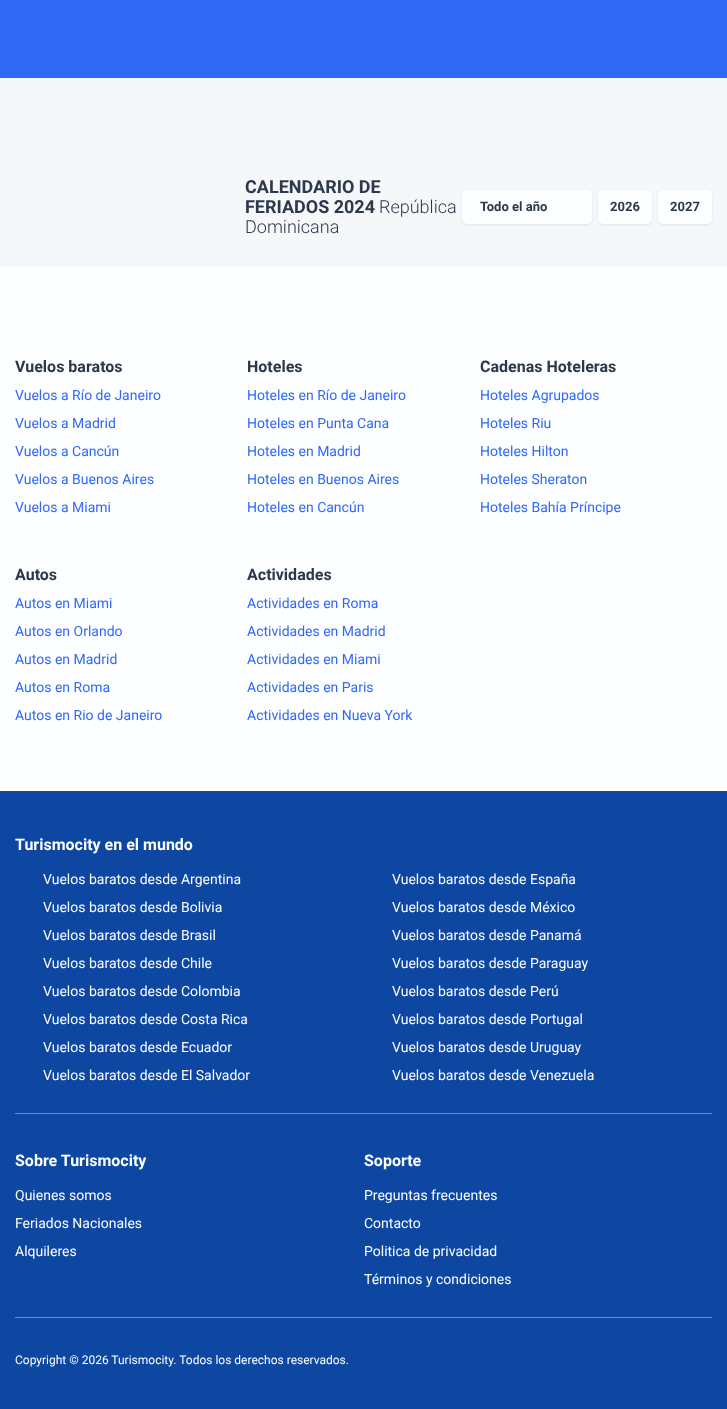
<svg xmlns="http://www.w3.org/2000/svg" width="727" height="1409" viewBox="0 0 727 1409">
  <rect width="100%" height="100%" fill="rgb(245,247,249)"/>
  <rect x="0" y="0" width="727" height="78" fill="rgb(48,105,246)"/>
  <g font-family="Roboto" font-size="18" font-weight="bold" fill="rgb(45,56,76)">
    <text>
      <tspan x="245" y="193">CALENDARIO DE</tspan>
      <tspan x="245" y="213">FERIADOS 2024</tspan>
    </text>
  </g>
  <g font-family="Roboto" font-size="18" font-weight="300" fill="rgb(45,56,76)">
    <text x="379" y="213">República</text>
    <text x="245" y="233">Dominicana</text>
  </g>
  <rect x="462" y="191" width="130" height="34" rx="5" fill="rgba(102,107,135,0.14)" filter="blur(1px)"/>
  <rect x="462" y="190" width="130" height="34" rx="5" fill="rgb(252,254,255)"/>
  <text x="480" y="211" font-family="Roboto" font-size="13" font-weight="bold" fill="rgb(45,56,76)">Todo el año</text>
  <rect x="598" y="191" width="54" height="34" rx="5" fill="rgba(102,107,135,0.14)" filter="blur(1px)"/>
  <rect x="598" y="190" width="54" height="34" rx="5" fill="rgb(252,254,255)"/>
  <text x="610" y="211" font-family="Roboto" font-size="13" font-weight="bold" fill="rgb(45,56,76)">2026</text>
  <rect x="658" y="191" width="54" height="34" rx="5" fill="rgba(102,107,135,0.14)" filter="blur(1px)"/>
  <rect x="658" y="190" width="54" height="34" rx="5" fill="rgb(252,254,255)"/>
  <text x="670" y="211" font-family="Roboto" font-size="13" font-weight="bold" fill="rgb(45,56,76)">2027</text>
  <rect x="0" y="267" width="727" height="524" fill="rgb(252,254,255)"/>
  <text x="15" y="372" font-family="Roboto" font-size="16" font-weight="bold" fill="rgb(45,56,76)">Vuelos baratos</text>
  <g font-family="Roboto" font-size="14" fill="rgb(48,105,246)">
    <text x="15" y="400">Vuelos a Río de Janeiro</text>
    <text x="15" y="428">Vuelos a Madrid</text>
    <text x="15" y="456">Vuelos a Cancún</text>
    <text x="15" y="484">Vuelos a Buenos Aires</text>
    <text x="15" y="512">Vuelos a Miami</text>
  </g>
  <text x="247" y="372" font-family="Roboto" font-size="16" font-weight="bold" fill="rgb(45,56,76)">Hoteles</text>
  <g font-family="Roboto" font-size="14" fill="rgb(48,105,246)">
    <text x="247" y="400">Hoteles en Río de Janeiro</text>
    <text x="247" y="428">Hoteles en Punta Cana</text>
    <text x="247" y="456">Hoteles en Madrid</text>
    <text x="247" y="484">Hoteles en Buenos Aires</text>
    <text x="247" y="512">Hoteles en Cancún</text>
  </g>
  <text x="480" y="372" font-family="Roboto" font-size="16" font-weight="bold" fill="rgb(45,56,76)">Cadenas Hoteleras</text>
  <g font-family="Roboto" font-size="14" fill="rgb(48,105,246)">
    <text x="480" y="400">Hoteles Agrupados</text>
    <text x="480" y="428">Hoteles Riu</text>
    <text x="480" y="456">Hoteles Hilton</text>
    <text x="480" y="484">Hoteles Sheraton</text>
    <text x="480" y="512">Hoteles Bahía Príncipe</text>
  </g>
  <text x="15" y="580" font-family="Roboto" font-size="16" font-weight="bold" fill="rgb(45,56,76)">Autos</text>
  <g font-family="Roboto" font-size="14" fill="rgb(48,105,246)">
    <text x="15" y="608">Autos en Miami</text>
    <text x="15" y="636">Autos en Orlando</text>
    <text x="15" y="664">Autos en Madrid</text>
    <text x="15" y="692">Autos en Roma</text>
    <text x="15" y="720">Autos en Rio de Janeiro</text>
  </g>
  <text x="247" y="580" font-family="Roboto" font-size="16" font-weight="bold" fill="rgb(45,56,76)">Actividades</text>
  <g font-family="Roboto" font-size="14" fill="rgb(48,105,246)">
    <text x="247" y="608">Actividades en Roma</text>
    <text x="247" y="636">Actividades en Madrid</text>
    <text x="247" y="664">Actividades en Miami</text>
    <text x="247" y="692">Actividades en Paris</text>
    <text x="247" y="720">Actividades en Nueva York</text>
  </g>
  <rect x="0" y="791" width="727" height="618" fill="rgb(13,71,161)"/>
  <text x="15" y="850" font-family="Roboto" font-size="16" font-weight="bold" fill="rgb(252,254,255)">Turismocity en el mundo</text>
  <g font-family="Roboto" font-size="14" fill="rgb(252,254,255)">
    <text x="43" y="884">Vuelos baratos desde Argentina</text>
    <text x="392" y="884">Vuelos baratos desde España</text>
    <text x="43" y="912">Vuelos baratos desde Bolivia</text>
    <text x="392" y="912">Vuelos baratos desde México</text>
    <text x="43" y="940">Vuelos baratos desde Brasil</text>
    <text x="392" y="940">Vuelos baratos desde Panamá</text>
    <text x="43" y="968">Vuelos baratos desde Chile</text>
    <text x="392" y="968">Vuelos baratos desde Paraguay</text>
    <text x="43" y="996">Vuelos baratos desde Colombia</text>
    <text x="392" y="996">Vuelos baratos desde Perú</text>
    <text x="43" y="1024">Vuelos baratos desde Costa Rica</text>
    <text x="392" y="1024">Vuelos baratos desde Portugal</text>
    <text x="43" y="1052">Vuelos baratos desde Ecuador</text>
    <text x="392" y="1052">Vuelos baratos desde Uruguay</text>
    <text x="43" y="1080">Vuelos baratos desde El Salvador</text>
    <text x="392" y="1080">Vuelos baratos desde Venezuela</text>
  </g>
  <rect x="15" y="1113" width="697" height="1" fill="rgb(98,140,209)"/>
  <text x="15" y="1166" font-family="Roboto" font-size="16" font-weight="bold" fill="rgb(252,254,255)">Sobre Turismocity</text>
  <g font-family="Roboto" font-size="14" fill="rgb(252,254,255)">
    <text x="15" y="1200">Quienes somos</text>
    <text x="15" y="1228">Feriados Nacionales</text>
    <text x="15" y="1256">Alquileres</text>
  </g>
  <text x="364" y="1166" font-family="Roboto" font-size="16" font-weight="bold" fill="rgb(252,254,255)">Soporte</text>
  <g font-family="Roboto" font-size="14" fill="rgb(252,254,255)">
    <text x="364" y="1200">Preguntas frecuentes</text>
    <text x="364" y="1228">Contacto</text>
    <text x="364" y="1256">Politica de privacidad</text>
    <text x="364" y="1284">Términos y condiciones</text>
  </g>
  <rect x="15" y="1317" width="697" height="1" fill="rgb(98,140,209)"/>
  <text x="15" y="1364" font-family="Roboto" font-size="12" fill="rgb(252,254,255)">Copyright © 2026 Turismocity. Todos los derechos reservados.</text>
</svg>
